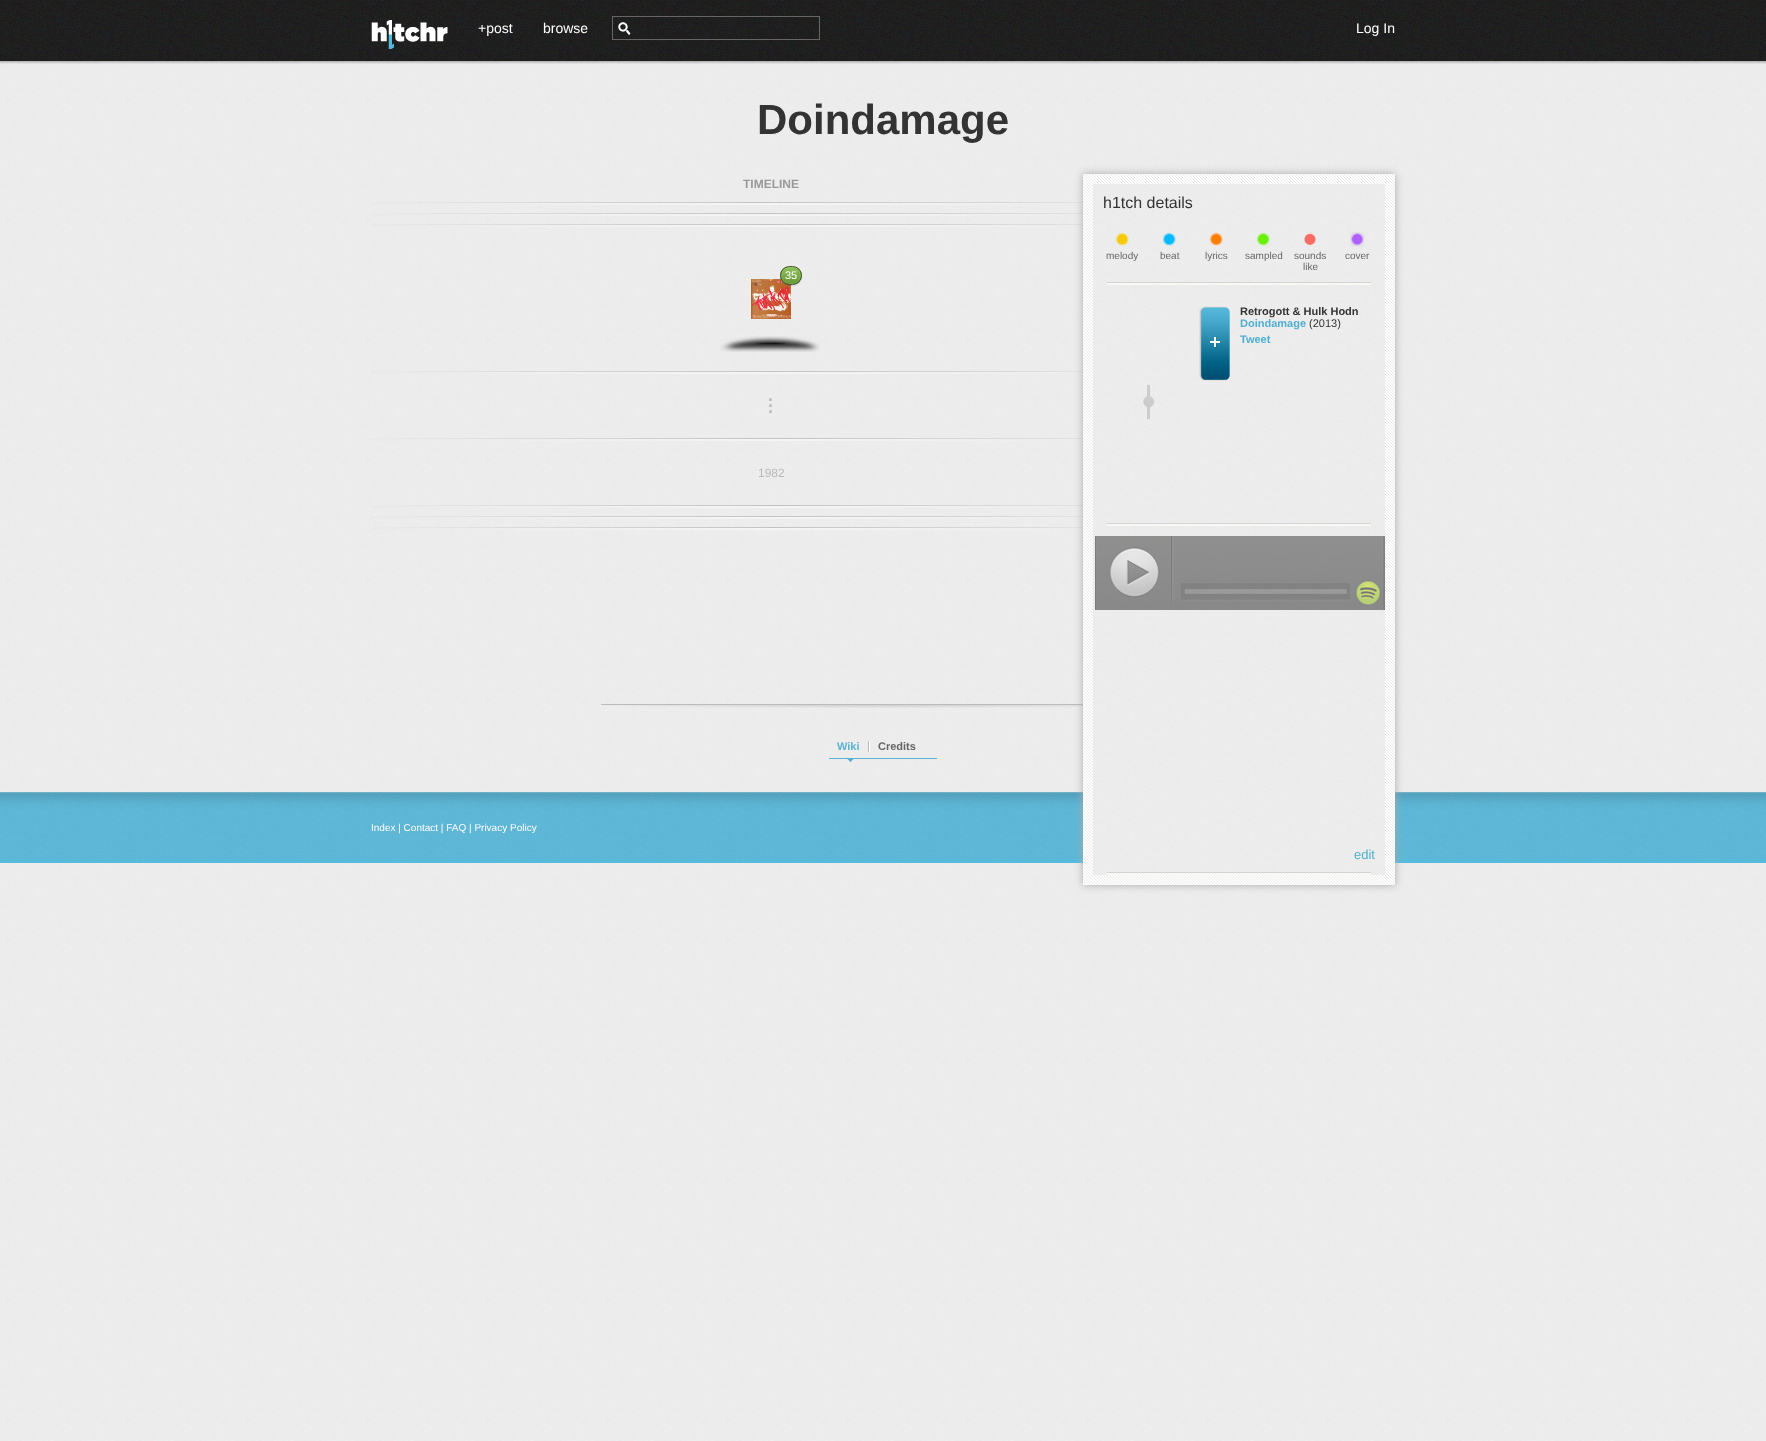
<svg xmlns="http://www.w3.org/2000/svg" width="1766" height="1441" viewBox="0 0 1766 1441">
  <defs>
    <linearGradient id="g1" gradientUnits="userSpaceOnUse" x1="371" y1="204" x2="1171" y2="203"><stop offset="0" stop-color="rgb(234,234,234)"/><stop offset="0.5" stop-color="rgb(246,245,246)"/><stop offset="1" stop-color="rgb(234,234,234)"/></linearGradient>
    <linearGradient id="g2" gradientUnits="userSpaceOnUse" x1="371" y1="203" x2="1171" y2="202"><stop offset="0" stop-color="rgb(234,234,234)"/><stop offset="0.5" stop-color="rgb(195,195,195)"/><stop offset="1" stop-color="rgb(234,234,234)"/></linearGradient>
    <linearGradient id="g3" gradientUnits="userSpaceOnUse" x1="371" y1="215" x2="1171" y2="214"><stop offset="0" stop-color="rgb(234,234,234)"/><stop offset="0.5" stop-color="rgb(246,245,246)"/><stop offset="1" stop-color="rgb(234,234,234)"/></linearGradient>
    <linearGradient id="g4" gradientUnits="userSpaceOnUse" x1="371" y1="214" x2="1171" y2="213"><stop offset="0" stop-color="rgb(234,234,234)"/><stop offset="0.5" stop-color="rgb(195,195,195)"/><stop offset="1" stop-color="rgb(234,234,234)"/></linearGradient>
    <linearGradient id="g5" gradientUnits="userSpaceOnUse" x1="371" y1="226" x2="1171" y2="225"><stop offset="0" stop-color="rgb(234,234,234)"/><stop offset="0.5" stop-color="rgb(246,245,246)"/><stop offset="1" stop-color="rgb(234,234,234)"/></linearGradient>
    <linearGradient id="g6" gradientUnits="userSpaceOnUse" x1="371" y1="225" x2="1171" y2="224"><stop offset="0" stop-color="rgb(234,234,234)"/><stop offset="0.5" stop-color="rgb(195,195,195)"/><stop offset="1" stop-color="rgb(234,234,234)"/></linearGradient>
    <clipPath id="clip1"><rect x="780" y="266" width="22" height="19" rx="9.5"/></clipPath>
    <linearGradient id="g7" gradientUnits="userSpaceOnUse" x1="791" y1="267" x2="791" y2="284"><stop offset="0" stop-color="rgb(142,193,91)"/><stop offset="1" stop-color="rgb(104,151,57)"/></linearGradient>
    <linearGradient id="g8" gradientUnits="userSpaceOnUse" x1="371" y1="373" x2="1171" y2="373"><stop offset="0" stop-color="rgb(234,234,234)"/><stop offset="0.5" stop-color="rgb(246,245,246)"/><stop offset="1" stop-color="rgb(234,234,234)"/></linearGradient>
    <linearGradient id="g9" gradientUnits="userSpaceOnUse" x1="371" y1="372" x2="1171" y2="372"><stop offset="0" stop-color="rgb(234,234,234)"/><stop offset="0.5" stop-color="rgb(195,195,195)"/><stop offset="1" stop-color="rgb(234,234,234)"/></linearGradient>
    <linearGradient id="g10" gradientUnits="userSpaceOnUse" x1="371" y1="440" x2="1171" y2="440"><stop offset="0" stop-color="rgb(234,234,234)"/><stop offset="0.5" stop-color="rgb(246,245,246)"/><stop offset="1" stop-color="rgb(234,234,234)"/></linearGradient>
    <linearGradient id="g11" gradientUnits="userSpaceOnUse" x1="371" y1="439" x2="1171" y2="439"><stop offset="0" stop-color="rgb(234,234,234)"/><stop offset="0.5" stop-color="rgb(195,195,195)"/><stop offset="1" stop-color="rgb(234,234,234)"/></linearGradient>
    <linearGradient id="g12" gradientUnits="userSpaceOnUse" x1="371" y1="507" x2="1171" y2="507"><stop offset="0" stop-color="rgb(234,234,234)"/><stop offset="0.5" stop-color="rgb(246,245,246)"/><stop offset="1" stop-color="rgb(234,234,234)"/></linearGradient>
    <linearGradient id="g13" gradientUnits="userSpaceOnUse" x1="371" y1="506" x2="1171" y2="506"><stop offset="0" stop-color="rgb(234,234,234)"/><stop offset="0.5" stop-color="rgb(195,195,195)"/><stop offset="1" stop-color="rgb(234,234,234)"/></linearGradient>
    <linearGradient id="g14" gradientUnits="userSpaceOnUse" x1="371" y1="518" x2="1171" y2="518"><stop offset="0" stop-color="rgb(234,234,234)"/><stop offset="0.5" stop-color="rgb(246,245,246)"/><stop offset="1" stop-color="rgb(234,234,234)"/></linearGradient>
    <linearGradient id="g15" gradientUnits="userSpaceOnUse" x1="371" y1="517" x2="1171" y2="517"><stop offset="0" stop-color="rgb(234,234,234)"/><stop offset="0.5" stop-color="rgb(195,195,195)"/><stop offset="1" stop-color="rgb(234,234,234)"/></linearGradient>
    <linearGradient id="g16" gradientUnits="userSpaceOnUse" x1="371" y1="529" x2="1171" y2="529"><stop offset="0" stop-color="rgb(234,234,234)"/><stop offset="0.5" stop-color="rgb(246,245,246)"/><stop offset="1" stop-color="rgb(234,234,234)"/></linearGradient>
    <linearGradient id="g17" gradientUnits="userSpaceOnUse" x1="371" y1="528" x2="1171" y2="528"><stop offset="0" stop-color="rgb(234,234,234)"/><stop offset="0.5" stop-color="rgb(195,195,195)"/><stop offset="1" stop-color="rgb(234,234,234)"/></linearGradient>
  </defs>
  <rect width="100%" height="100%" fill="rgb(255,255,255)"/>
  <image x="0" y="61" width="1766" height="1380" href="pic1.png"/>
  <image x="0" y="0" width="1766" height="64" href="pic2.png"/>
  <image x="371" y="20" width="77" height="29" href="pic3.png"/>
  <text x="543" y="33" font-family="Liberation Sans" font-size="14" fill="rgb(255,255,255)">browse</text>
  <image x="618" y="22" width="13" height="13" href="pic4.png"/>
  <rect x="612.5" y="16.5" width="207" height="23" fill="none" stroke="rgb(102,102,102)"/>
  <g font-family="Liberation Sans" font-size="14" fill="rgb(255,255,255)">
    <text x="478" y="33">+post</text>
    <text x="1356" y="33">Log In</text>
  </g>
  <image x="0" y="792" width="1766" height="71" href="pic5.png"/>
  <text x="371" y="831" font-family="Liberation Sans" font-size="10" fill="rgb(255,255,255)">Index | Contact | FAQ | Privacy Policy</text>
  <text x="757" y="134" font-family="Liberation Sans" font-size="42" font-weight="bold" fill="rgb(51,51,51)">Doindamage</text>
  <text x="743" y="188" font-family="Liberation Sans" font-size="12" font-weight="bold" fill="rgb(153,153,153)">TIMELINE</text>
  <rect x="371" y="203" width="712" height="2" fill="url(#g1)"/>
  <rect x="371" y="202" width="712" height="1" fill="url(#g2)"/>
  <rect x="371" y="214" width="712" height="2" fill="url(#g3)"/>
  <rect x="371" y="213" width="712" height="1" fill="url(#g4)"/>
  <rect x="371" y="225" width="712" height="2" fill="url(#g5)"/>
  <rect x="371" y="224" width="712" height="1" fill="url(#g6)"/>
  <image x="751" y="279" width="40" height="40" href="pic6.png"/>
  <path d="M780 276C779.5 289.5 802.5 289.5 802 276C801.5 288 780.5 288 780 276Z" fill="rgba(0,0,0,0.12)"/>
  <g clip-path="url(#clip1)">
    <rect x="780" y="267" width="22" height="17" fill="url(#g7)"/>
  </g>
  <rect x="781.5" y="267.5" width="19" height="16" rx="8" fill="none" stroke="rgba(255,255,255,0.1)"/>
  <rect x="780.5" y="266.5" width="21" height="18" rx="9" fill="none" stroke="rgb(66,88,43)"/>
  <text x="785" y="279" font-family="Liberation Sans" font-size="11" fill="rgb(255,255,255)">35</text>
  <text x="758" y="477" font-family="Liberation Sans" font-size="12" fill="rgb(186,186,186)">1982</text>
  <image x="720" y="336" width="100" height="16" href="pic7.png"/>
  <rect x="371" y="372" width="712" height="2" fill="url(#g8)"/>
  <rect x="371" y="371" width="712" height="1" fill="url(#g9)"/>
  <g font-family="Liberation Sans" font-size="18" font-weight="bold" fill="rgb(186,186,186)">
    <text>
      <tspan x="768" y="401">.</tspan>
      <tspan x="768" y="407">.</tspan>
      <tspan x="768" y="413">.</tspan>
    </text>
  </g>
  <rect x="371" y="439" width="712" height="2" fill="url(#g10)"/>
  <rect x="371" y="438" width="712" height="1" fill="url(#g11)"/>
  <rect x="371" y="506" width="712" height="2" fill="url(#g12)"/>
  <rect x="371" y="505" width="712" height="1" fill="url(#g13)"/>
  <rect x="371" y="517" width="712" height="2" fill="url(#g14)"/>
  <rect x="371" y="516" width="712" height="1" fill="url(#g15)"/>
  <rect x="371" y="528" width="712" height="2" fill="url(#g16)"/>
  <rect x="371" y="527" width="712" height="1" fill="url(#g17)"/>
  <image x="601" y="704" width="482" height="4" href="pic19.png"/>
  <rect x="1083" y="174" width="312" height="711" fill="rgb(170,170,170)" filter="blur(4px)"/>
  <image x="1083" y="174" width="312" height="711" href="pic8.png"/>
  <image x="1093" y="184" width="292" height="691" href="pic9.png"/>
  <text x="1103" y="208" font-family="Liberation Sans" font-size="16" fill="rgb(51,51,51)">h1tch details</text>
  <image x="1115" y="232" width="14" height="14" href="pic10.png"/>
  <image x="1162" y="232" width="14" height="14" href="pic11.png"/>
  <image x="1209" y="232" width="14" height="14" href="pic12.png"/>
  <image x="1256" y="232" width="14" height="14" href="pic13.png"/>
  <image x="1304" y="232" width="12" height="13" href="pic14.png"/>
  <image x="1350" y="232" width="15" height="15" href="pic15.png"/>
  <g font-family="Liberation Sans" font-size="10" fill="rgb(102,102,102)">
    <text x="1106" y="259">melody</text>
    <text x="1160" y="259">beat</text>
    <text x="1205" y="259">lyrics</text>
    <text x="1245" y="259">sampled</text>
    <text x="1294" y="259">sounds</text>
    <text x="1303" y="270">like</text>
    <text x="1345" y="259">cover</text>
  </g>
  <rect x="1107" y="283" width="264" height="2" fill="rgb(249,248,245)"/>
  <rect x="1107" y="282" width="264" height="1" fill="rgb(212,212,213)"/>
  <image x="1199" y="306" width="31" height="75" href="pic16.png"/>
  <text x="1240" y="315" font-family="Liberation Sans" font-size="11" font-weight="bold" fill="rgb(51,51,51)">Retrogott &amp; Hulk Hodn</text>
  <text x="1240" y="327" font-family="Liberation Sans" font-size="11" font-weight="bold" fill="rgb(79,175,209)">Doindamage</text>
  <text x="1309" y="327" font-family="Liberation Sans" font-size="11" fill="rgb(51,51,51)">(2013)</text>
  <text x="1240" y="343" font-family="Liberation Sans" font-size="11" font-weight="bold" fill="rgb(79,175,209)">Tweet</text>
  <image x="1143" y="385" width="12" height="34" href="pic17.png"/>
  <rect x="1107" y="524" width="264" height="2" fill="rgb(249,248,245)"/>
  <rect x="1107" y="523" width="264" height="1" fill="rgb(212,212,213)"/>
  <image x="1095" y="536" width="290" height="74" href="pic18.png"/>
  <text x="1354" y="859" font-family="Liberation Sans" font-size="13" fill="rgb(79,175,209)">edit</text>
  <rect x="1107" y="873" width="264" height="2" fill="rgb(249,248,245)"/>
  <rect x="1107" y="872" width="264" height="1" fill="rgb(212,212,213)"/>
  <text x="837" y="750" font-family="Liberation Sans" font-size="11" font-weight="bold" fill="rgb(90,179,211)">Wiki</text>
  <rect x="868" y="741" width="1" height="11" fill="rgb(189,186,186)"/>
  <rect x="869" y="741" width="1" height="11" fill="rgb(255,255,255)"/>
  <text x="878" y="750" font-family="Liberation Sans" font-size="11" font-weight="bold" fill="rgb(102,102,102)">Credits</text>
  <rect x="829" y="758" width="108" height="1" fill="rgb(90,179,211)"/>
  <image x="847" y="759" width="7" height="3" href="pic20.png"/>
</svg>
